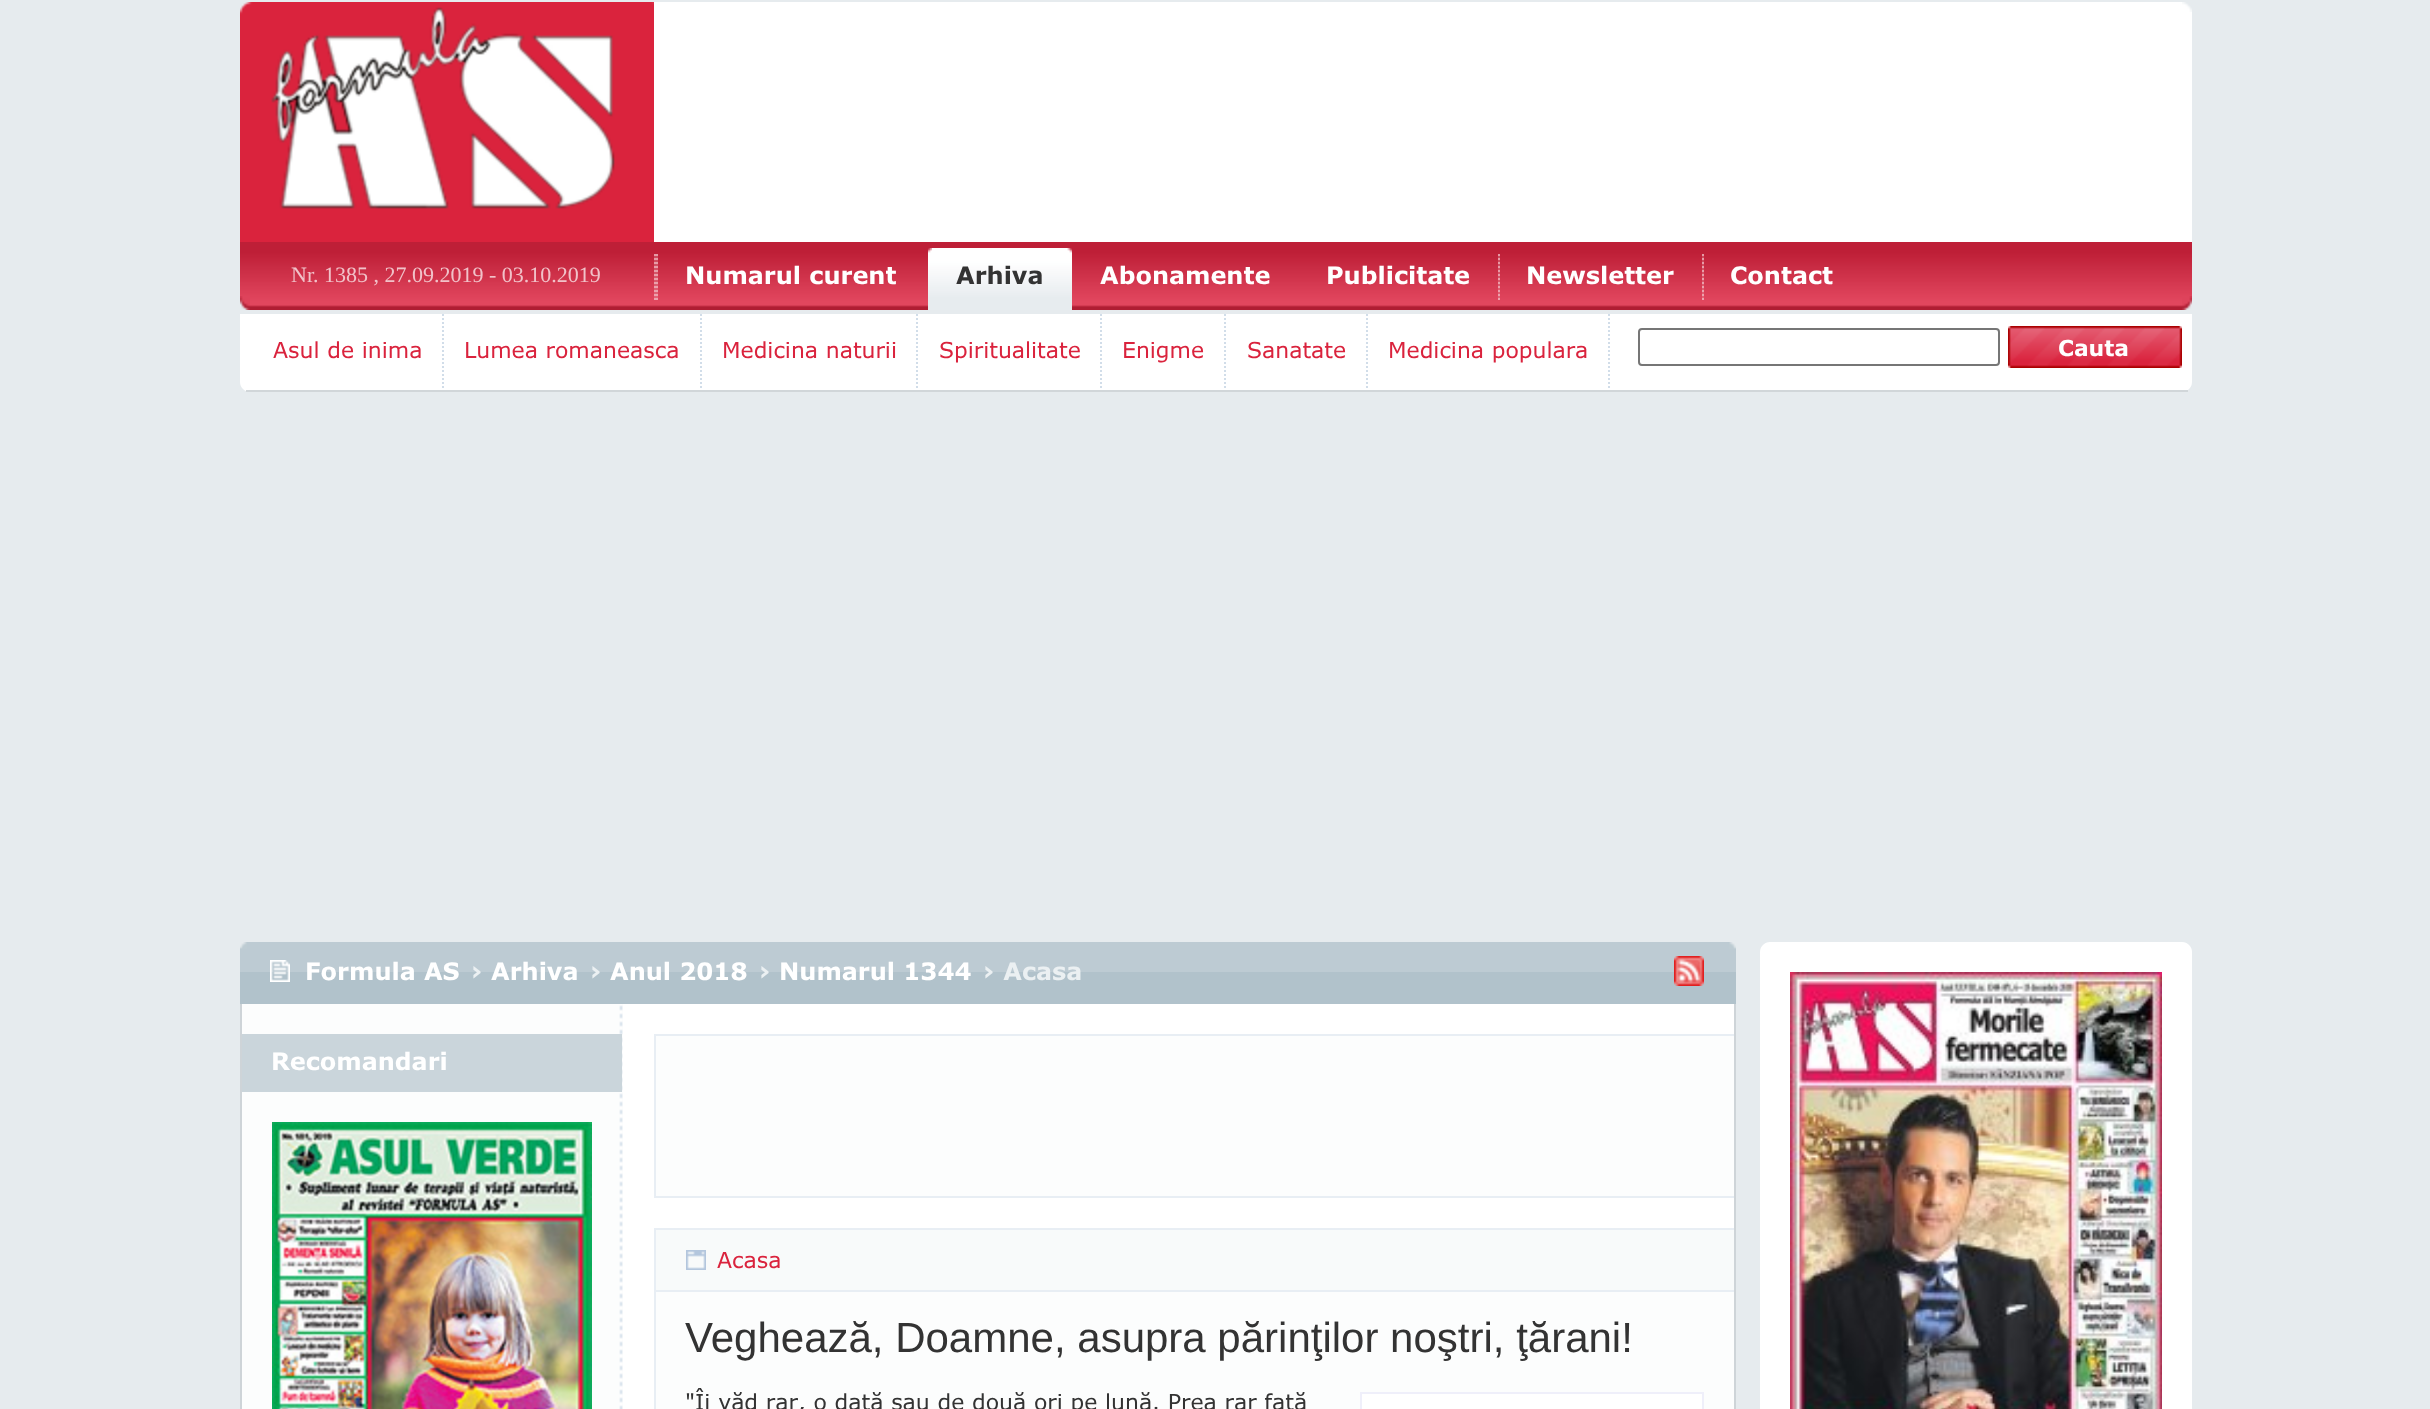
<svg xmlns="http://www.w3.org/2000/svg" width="2430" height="1409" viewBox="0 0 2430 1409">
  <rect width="100%" height="100%" fill="rgb(230,235,238)"/>
  <rect x="654" y="2" width="1538" height="240" fill="rgb(255,255,255)"/>
  <rect x="240" y="209" width="414" height="33" fill="rgb(218,35,61)"/>
  <image x="240" y="2" width="414" height="207" href="pic1.png"/>
  <image x="2182" y="2" width="10" height="10" href="pic2.png"/>
  <image x="240" y="242" width="1952" height="68" href="pic3.png"/>
  <text x="291" y="282" font-family="Liberation Serif" font-size="22" fill="rgb(241,194,201)">Nr. 1385 , 27.09.2019 - 03.10.2019</text>
  <image x="654" y="254" width="4" height="46" href="pic4.png"/>
  <text x="685" y="284" font-family="Verdana" font-size="24" font-weight="bold" fill="rgb(255,255,255)">Numarul curent</text>
  <image x="928" y="248" width="144" height="62" href="pic5.png"/>
  <image x="928" y="248" width="4" height="5" href="pic6.png"/>
  <text x="956" y="284" font-family="Verdana" font-size="24" font-weight="bold" fill="rgb(51,51,51)">Arhiva</text>
  <g font-family="Verdana" font-size="24" font-weight="bold" fill="rgb(255,255,255)">
    <text x="1100" y="284">Abonamente</text>
    <text x="1326" y="284">Publicitate</text>
  </g>
  <image x="1498" y="254" width="2" height="46" href="pic7.png"/>
  <text x="1526" y="284" font-family="Verdana" font-size="24" font-weight="bold" fill="rgb(255,255,255)">Newsletter</text>
  <image x="1702" y="254" width="2" height="46" href="pic7.png"/>
  <text x="1730" y="284" font-family="Verdana" font-size="24" font-weight="bold" fill="rgb(255,255,255)">Contact</text>
  <image x="240" y="296" width="10" height="14" href="pic8.png"/>
  <image x="2182" y="296" width="10" height="14" href="pic9.png"/>
  <path d="M240 314H2192V382C2192 387.5 2187.5 392 2182 392H250C244.5 392 240 387.5 240 382Z" fill="rgb(255,255,255)"/>
  <rect x="246" y="390" width="1942" height="2" fill="rgb(209,214,217)"/>
  <path d="M443 314V390" fill="none" stroke="rgb(209,221,233)" stroke-width="2" stroke-dasharray="2 2"/>
  <text x="273" y="358" font-family="Verdana" font-size="22" fill="rgb(218,35,61)">Asul de inima</text>
  <path d="M701 314V390" fill="none" stroke="rgb(209,221,233)" stroke-width="2" stroke-dasharray="2 2"/>
  <text x="464" y="358" font-family="Verdana" font-size="22" fill="rgb(218,35,61)">Lumea romaneasca</text>
  <path d="M917 314V390" fill="none" stroke="rgb(209,221,233)" stroke-width="2" stroke-dasharray="2 2"/>
  <text x="722" y="358" font-family="Verdana" font-size="22" fill="rgb(218,35,61)">Medicina naturii</text>
  <path d="M1101 314V390" fill="none" stroke="rgb(209,221,233)" stroke-width="2" stroke-dasharray="2 2"/>
  <text x="939" y="358" font-family="Verdana" font-size="22" fill="rgb(218,35,61)">Spiritualitate</text>
  <path d="M1225 314V390" fill="none" stroke="rgb(209,221,233)" stroke-width="2" stroke-dasharray="2 2"/>
  <text x="1122" y="358" font-family="Verdana" font-size="22" fill="rgb(218,35,61)">Enigme</text>
  <path d="M1367 314V390" fill="none" stroke="rgb(209,221,233)" stroke-width="2" stroke-dasharray="2 2"/>
  <text x="1247" y="358" font-family="Verdana" font-size="22" fill="rgb(218,35,61)">Sanatate</text>
  <path d="M1609 314V390" fill="none" stroke="rgb(209,221,233)" stroke-width="2" stroke-dasharray="2 2"/>
  <text x="1388" y="358" font-family="Verdana" font-size="22" fill="rgb(218,35,61)">Medicina populara</text>
  <rect x="1639" y="329" width="360" height="36" rx="3" fill="none" stroke="rgb(118,118,118)" stroke-width="2"/>
  <image x="2008" y="326" width="174" height="42" href="pic10.png"/>
  <text x="2058" y="356" font-family="Verdana" font-size="22" font-weight="bold" fill="rgb(255,255,255)">Cauta</text>
  <rect x="623" y="1004" width="1111" height="405" fill="rgb(255,255,255)"/>
  <image x="242" y="1004" width="381" height="405" href="pic11.png"/>
  <rect x="240" y="972" width="1496" height="32" fill="rgb(177,194,203)"/>
  <rect x="240" y="942" width="1496" height="30" fill="rgb(189,203,211)"/>
  <image x="240" y="942" width="7" height="7" href="pic12.png"/>
  <image x="1729" y="942" width="7" height="7" href="pic13.png"/>
  <image x="270" y="960" width="20" height="22" href="pic14.png"/>
  <text x="305" y="980" font-family="Verdana" font-size="24" font-weight="bold" fill="rgb(255,255,255)">Formula AS</text>
  <text x="470" y="980" font-family="Verdana" font-size="24" font-weight="bold" fill="rgb(235,240,242)">›</text>
  <text x="491" y="980" font-family="Verdana" font-size="24" font-weight="bold" fill="rgb(255,255,255)">Arhiva</text>
  <text x="589" y="980" font-family="Verdana" font-size="24" font-weight="bold" fill="rgb(235,240,242)">›</text>
  <text x="610" y="980" font-family="Verdana" font-size="24" font-weight="bold" fill="rgb(255,255,255)">Anul 2018</text>
  <text x="758" y="980" font-family="Verdana" font-size="24" font-weight="bold" fill="rgb(235,240,242)">›</text>
  <text x="779" y="980" font-family="Verdana" font-size="24" font-weight="bold" fill="rgb(255,255,255)">Numarul 1344</text>
  <text x="982" y="980" font-family="Verdana" font-size="24" font-weight="bold" fill="rgb(235,240,242)">› Acasa</text>
  <image x="1674" y="956" width="30" height="30" href="pic15.png"/>
  <rect x="1734" y="1004" width="2" height="405" fill="rgb(206,212,216)"/>
  <rect x="240" y="1004" width="2" height="405" fill="rgb(206,212,216)"/>
  <rect x="242" y="1034" width="380" height="58" fill="rgb(202,213,219)"/>
  <text x="271" y="1070" font-family="Verdana" font-size="24" font-weight="bold" fill="rgb(255,255,255)">Recomandari</text>
  <image x="272" y="1122" width="320" height="287" href="pic16.png"/>
  <rect x="656" y="1036" width="1078" height="160" fill="rgb(252,253,253)"/>
  <rect x="654" y="1034" width="1080" height="2" fill="rgb(232,238,244)"/>
  <rect x="654" y="1196" width="1080" height="2" fill="rgb(232,238,244)"/>
  <rect x="654" y="1034" width="2" height="164" fill="rgb(232,238,244)"/>
  <rect x="656" y="1292" width="1078" height="117" fill="rgb(252,253,253)"/>
  <rect x="654" y="1228" width="1080" height="2" fill="rgb(232,238,244)"/>
  <rect x="654" y="1228" width="2" height="181" fill="rgb(232,238,244)"/>
  <rect x="656" y="1230" width="1078" height="60" fill="rgb(248,250,250)"/>
  <rect x="656" y="1290" width="1078" height="2" fill="rgb(232,238,244)"/>
  <image x="686" y="1250" width="20" height="20" href="pic17.png"/>
  <text x="717" y="1268" font-family="Verdana" font-size="22" fill="rgb(218,35,61)">Acasa</text>
  <text x="685" y="1352" font-family="Liberation Sans" font-size="42" fill="rgb(51,51,51)">Veghează, Doamne, asupra părinţilor noştri, ţărani!</text>
  <text x="685" y="1410" font-family="Verdana" font-size="22" fill="rgb(51,51,51)">"Îi văd rar, o dată sau de două ori pe lună. Prea rar faţă</text>
  <rect x="1361" y="1393" width="342" height="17" fill="rgb(255,255,255)" stroke="rgb(239,239,250)" stroke-width="2"/>
  <path d="M1770 942H2182C2187.5 942 2192 946.5 2192 952V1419H1760V952C1760 946.5 1764.5 942 1770 942Z" fill="rgb(255,255,255)"/>
  <image x="1790" y="972" width="372" height="437" href="pic18.png"/>
</svg>
